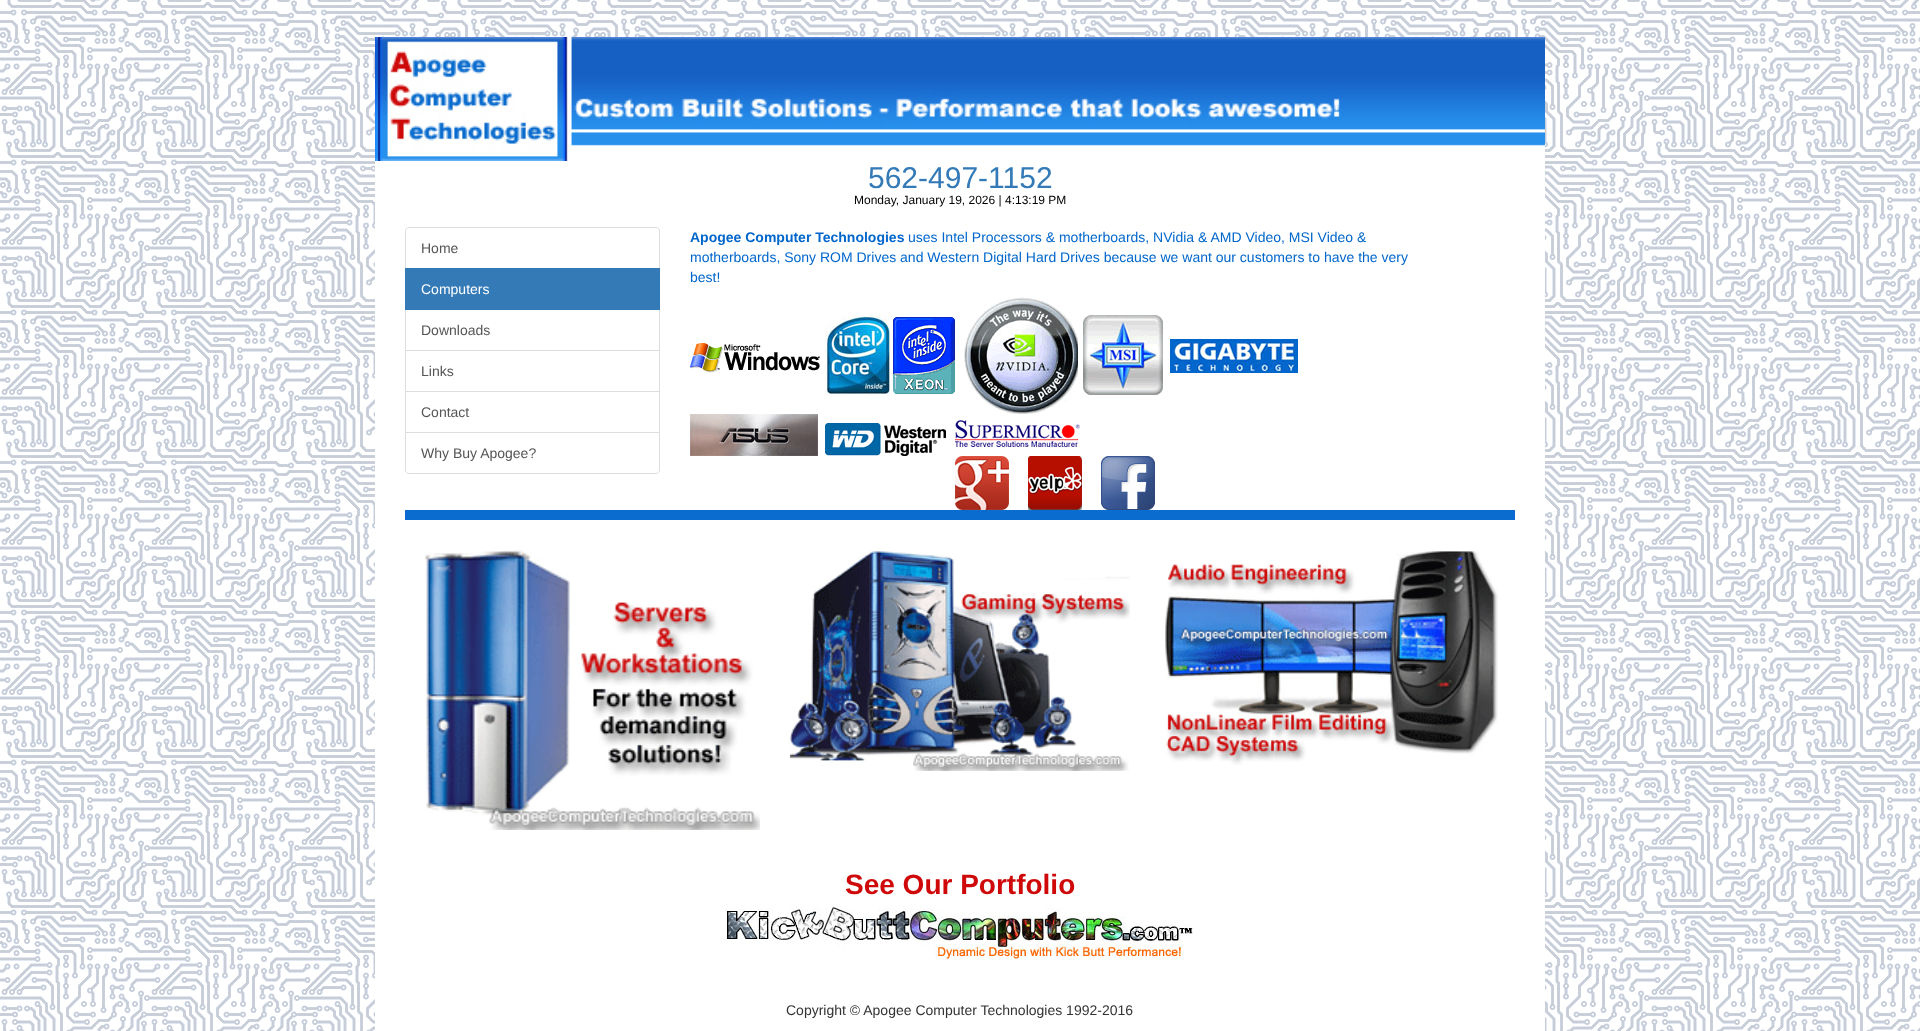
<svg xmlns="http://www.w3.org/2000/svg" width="1920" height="1031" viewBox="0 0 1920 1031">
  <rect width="100%" height="100%" fill="rgb(255,255,255)"/>
  <image x="0" y="0" width="1920" height="1031" href="pic1.png"/>
  <image x="375" y="37" width="1170" height="124" href="pic2.png"/>
  <rect x="375" y="161" width="1170" height="870" fill="rgb(255,255,255)"/>
  <text x="868" y="188" font-family="Liberation Sans" font-size="30" fill="rgb(51,122,183)">562-497-1152</text>
  <text x="854" y="204" font-family="Liberation Sans" font-size="12" fill="rgb(0,0,0)">Monday, January 19, 2026 | 4:13:19 PM</text>
  <path d="M409 227.5H656C658 227.5 659.5 229 659.5 231V268.5H405.5V231C405.5 229 407 227.5 409 227.5Z" fill="none" stroke="rgb(221,221,221)"/>
  <text x="421" y="253" font-family="Liberation Sans" font-size="14" fill="rgb(85,85,85)">Home</text>
  <rect x="405.5" y="309.5" width="254" height="41" fill="none" stroke="rgb(221,221,221)"/>
  <rect x="405" y="268" width="255" height="42" fill="rgb(51,122,183)"/>
  <text x="421" y="294" font-family="Liberation Sans" font-size="14" fill="rgb(255,255,255)">Computers</text>
  <text x="421" y="335" font-family="Liberation Sans" font-size="14" fill="rgb(85,85,85)">Downloads</text>
  <rect x="405.5" y="350.5" width="254" height="41" fill="none" stroke="rgb(221,221,221)"/>
  <text x="421" y="376" font-family="Liberation Sans" font-size="14" fill="rgb(85,85,85)">Links</text>
  <rect x="405.5" y="391.5" width="254" height="41" fill="none" stroke="rgb(221,221,221)"/>
  <text x="421" y="417" font-family="Liberation Sans" font-size="14" fill="rgb(85,85,85)">Contact</text>
  <path d="M405.5 432.5H659.5V470C659.5 472 658 473.5 656 473.5H409C407 473.5 405.5 472 405.5 470Z" fill="rgb(255,255,255)" stroke="rgb(221,221,221)"/>
  <text x="421" y="458" font-family="Liberation Sans" font-size="14" fill="rgb(85,85,85)">Why Buy Apogee?</text>
  <text x="690" y="242" font-family="Liberation Sans" font-size="14" font-weight="bold" fill="rgb(0,102,204)">Apogee Computer Technologies</text>
  <g font-family="Liberation Sans" font-size="14" fill="rgb(0,102,204)">
    <text x="908" y="242">uses Intel Processors &amp; motherboards, NVidia &amp; AMD Video, MSI Video &amp;</text>
    <text>
      <tspan x="690" y="262">motherboards, Sony ROM Drives and Western Digital Hard Drives because we want our customers to have the very</tspan>
      <tspan x="690" y="282">best!</tspan>
    </text>
  </g>
  <image x="690" y="343" width="130" height="30" href="pic3.png"/>
  <image x="825" y="315" width="66" height="80" href="pic4.png"/>
  <image x="893" y="317" width="62" height="77" href="pic5.png"/>
  <image x="964" y="297" width="114" height="117" href="pic6.png"/>
  <image x="1083" y="315" width="80" height="80" href="pic7.png"/>
  <image x="1170" y="339" width="128" height="34" href="pic8.png"/>
  <image x="690" y="414" width="128" height="42" href="pic9.png"/>
  <image x="825" y="423" width="121" height="33" href="pic10.png"/>
  <image x="955" y="420" width="125" height="27" href="pic11.png"/>
  <image x="955" y="456" width="54" height="54" href="pic12.png"/>
  <image x="1028" y="456" width="54" height="54" href="pic13.png"/>
  <image x="1101" y="456" width="54" height="54" href="pic14.png"/>
  <rect x="405" y="510" width="1110" height="10" fill="rgb(10,108,206)"/>
  <image x="424" y="550" width="336" height="280" href="pic15.png"/>
  <image x="790" y="551" width="340" height="220" href="pic16.png"/>
  <image x="1165" y="551" width="333" height="214" href="pic17.png"/>
  <text x="845" y="894" font-family="Liberation Sans" font-size="28" font-weight="bold" fill="rgb(207,9,9)">See Our Portfolio</text>
  <image x="726" y="902" width="468" height="58" href="pic18.png"/>
  <text x="786" y="1015" font-family="Liberation Sans" font-size="14" fill="rgb(51,51,51)">Copyright © Apogee Computer Technologies 1992-2016</text>
</svg>
